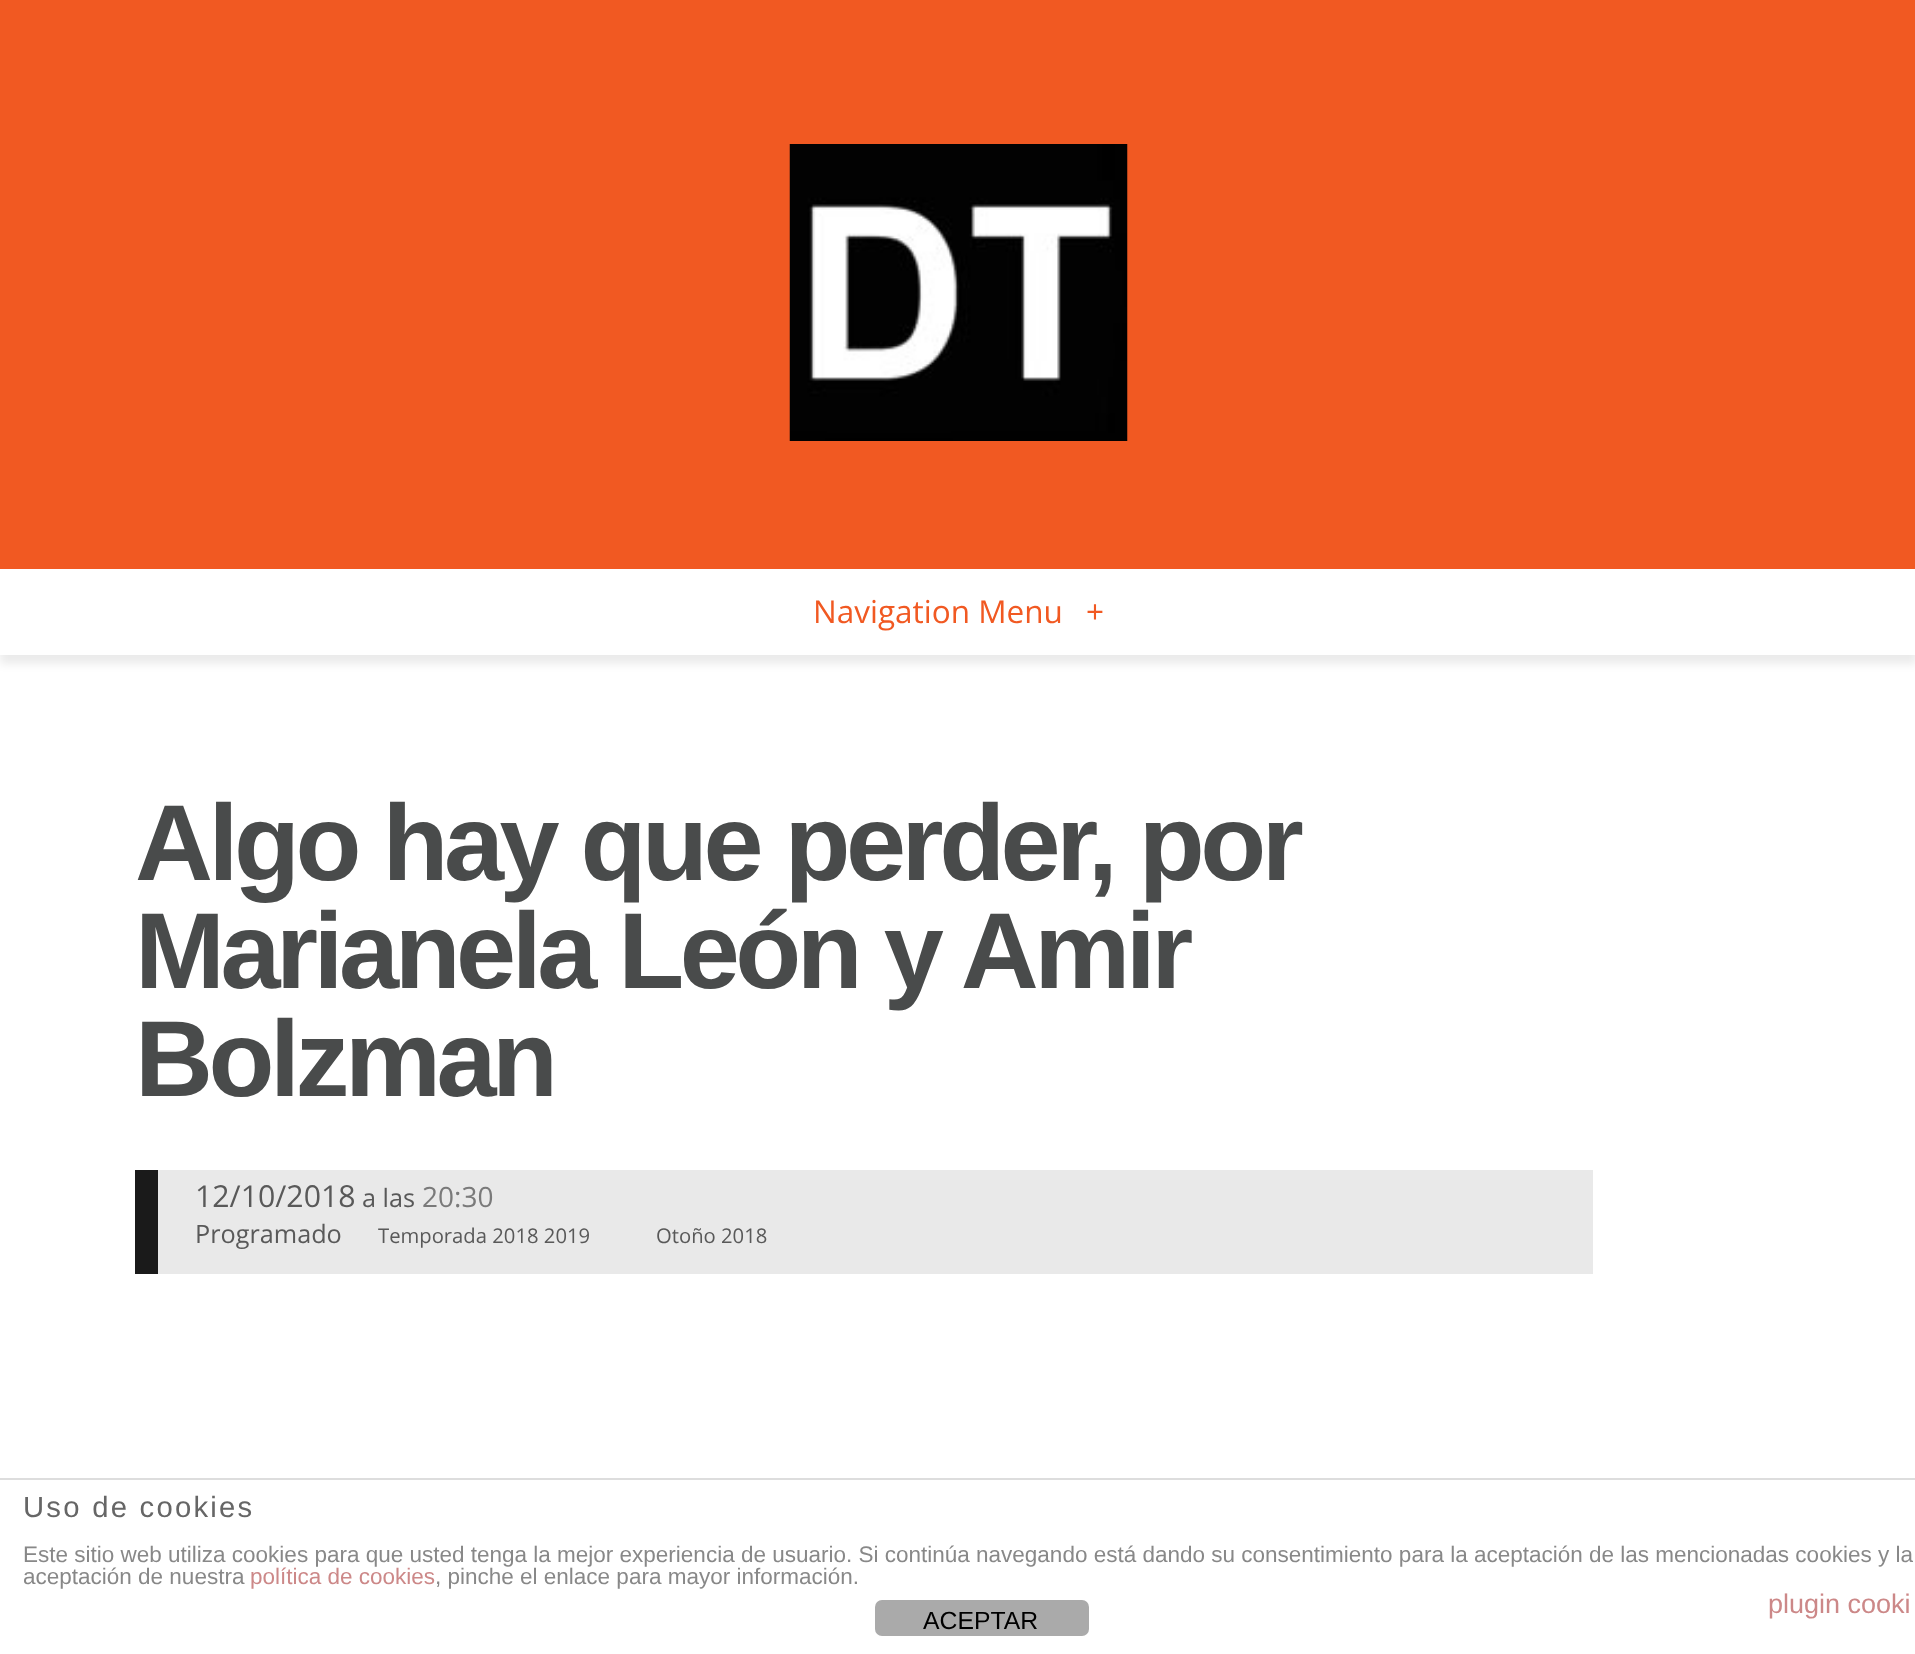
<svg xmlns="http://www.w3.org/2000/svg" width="1915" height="1654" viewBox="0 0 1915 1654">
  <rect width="100%" height="100%" fill="rgb(255,255,255)"/>
  <rect x="0" y="9" width="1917" height="655" fill="rgba(0,0,0,0.08)" filter="blur(4.5px)"/>
  <rect x="0" y="0" width="1915" height="569" fill="rgb(241,89,34)"/>
  <image x="789" y="144" width="339" height="297" href="pic1.png"/>
  <rect x="0" y="569" width="1915" height="86" fill="rgb(255,255,255)"/>
  <g font-family="Open Sans" font-size="31.5" fill="rgb(241,89,34)">
    <text x="813" y="623">Navigation Menu</text>
    <text x="1086" y="623">+</text>
  </g>
  <g font-family="Liberation Sans" font-size="108" font-weight="bold" letter-spacing="-4.5" fill="rgb(73,75,75)">
    <text>
      <tspan x="135" y="880">Algo hay que perder, por</tspan>
      <tspan x="135" y="988">Marianela León y Amir</tspan>
      <tspan x="135" y="1096">Bolzman</tspan>
    </text>
  </g>
  <rect x="158" y="1170" width="1435" height="104" fill="rgb(233,233,233)"/>
  <rect x="135" y="1170" width="23" height="104" fill="rgb(26,26,26)"/>
  <text x="195" y="1207" font-family="Open Sans" font-size="30.25" fill="rgb(89,89,89)">12/10/2018</text>
  <text x="362" y="1207" font-family="Open Sans" font-size="25.25" fill="rgb(89,89,89)">a las</text>
  <text x="422" y="1207" font-family="Open Sans" font-size="28" fill="rgb(122,122,122)">20:30</text>
  <text x="195" y="1243" font-family="Open Sans" font-size="25.25" fill="rgb(89,89,89)">Programado</text>
  <g font-family="Open Sans" font-size="20.25" fill="rgb(89,89,89)">
    <text x="378" y="1243">Temporada 2018 2019</text>
    <text x="656" y="1243">Otoño 2018</text>
  </g>
  <rect x="0" y="1478" width="1915" height="2" fill="rgb(221,221,221)"/>
  <text x="23" y="1517" font-family="Liberation Sans" font-size="29.25" letter-spacing="2.25" fill="rgb(102,102,102)">Uso de cookies</text>
  <g font-family="Liberation Sans" font-size="22.5" fill="rgb(136,136,136)">
    <text>
      <tspan x="23" y="1562">Este sitio web utiliza cookies para que usted tenga la mejor experiencia de usuario. Si continúa navegando está dando su consentimiento para la aceptación de las mencionadas cookies y la</tspan>
      <tspan x="23" y="1584">aceptación de nuestra</tspan>
    </text>
  </g>
  <text x="250" y="1584" font-family="Liberation Sans" font-size="22.5" fill="rgb(204,136,136)">política de cookies</text>
  <text x="435" y="1584" font-family="Liberation Sans" font-size="22.5" fill="rgb(136,136,136)">, pinche el enlace para mayor información.</text>
  <text x="1768" y="1613" font-family="Liberation Sans" font-size="27" fill="rgb(204,136,136)">plugin cooki</text>
  <rect x="875" y="1600" width="214" height="36" rx="7" fill="rgb(170,170,170)"/>
  <text x="923" y="1629" font-family="Liberation Sans" font-size="24.75" fill="rgb(0,0,0)">ACEPTAR</text>
</svg>
